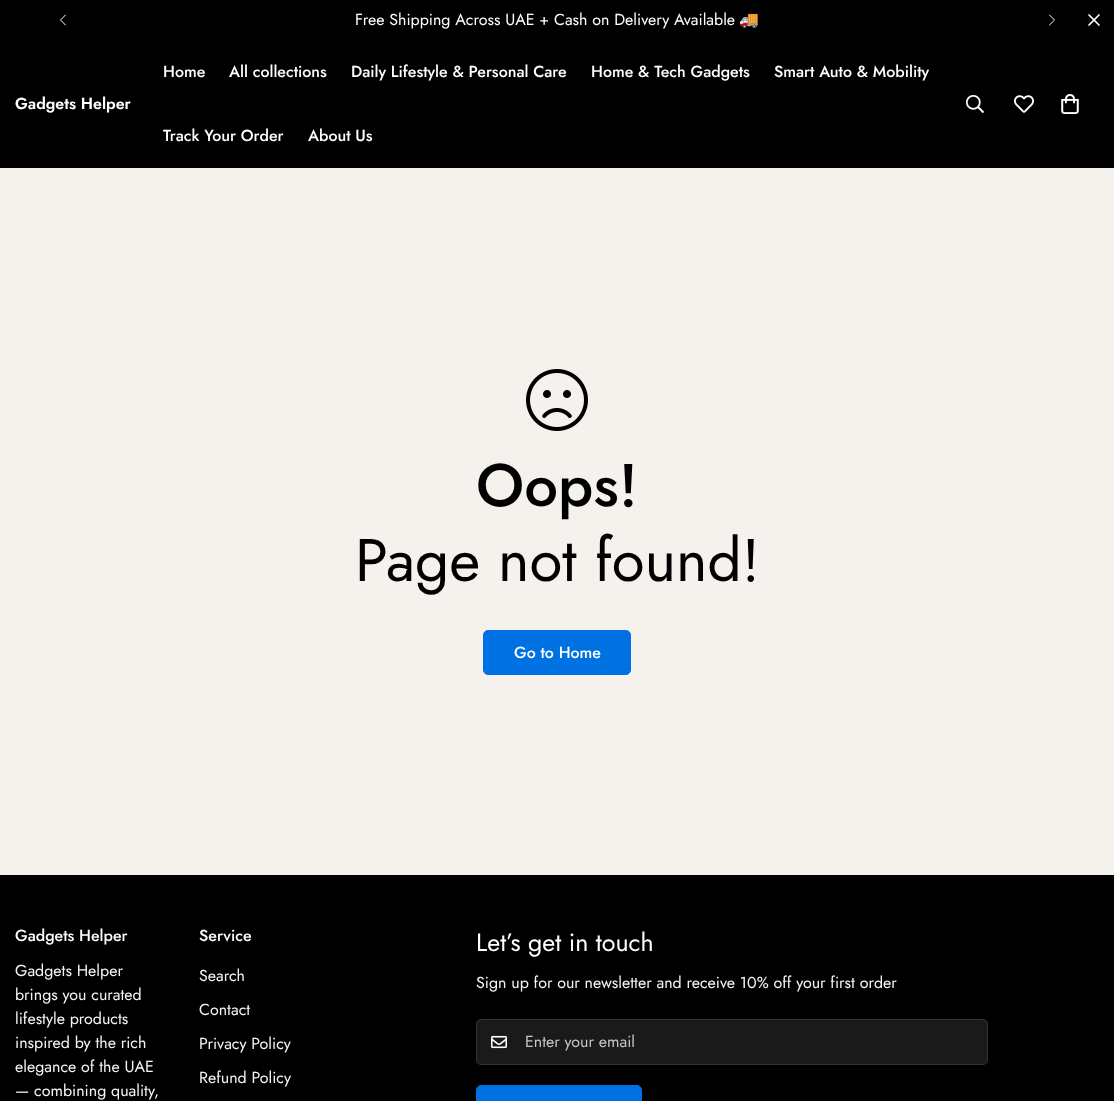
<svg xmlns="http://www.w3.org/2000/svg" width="1114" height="1101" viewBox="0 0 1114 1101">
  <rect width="100%" height="100%" fill="rgb(0,0,0)"/>
  <text x="355" y="25" font-family="Jost" font-size="16" fill="rgb(255,255,255)">Free Shipping Across UAE + Cash on Delivery Available</text>
  <text x="739" y="25" font-family="Noto Color Emoji" font-size="16" fill="rgb(255,255,255)">🚚</text>
  <path d="M65.5 25L60.5 20L65.5 15" fill="none" stroke="rgb(255,255,255)" stroke-linecap="round" stroke-linejoin="round"/>
  <path d="M1049.5 25L1054.5 20L1049.5 15" fill="none" stroke="rgb(255,255,255)" stroke-linecap="round" stroke-linejoin="round"/>
  <path d="M1089 25L1099 15M1089 15L1099 25" fill="none" stroke="rgb(255,255,255)" stroke-width="1.7" stroke-linecap="round" stroke-linejoin="round"/>
  <text x="15" y="109" font-family="Jost" font-size="16" font-weight="600" fill="rgb(255,255,255)">Gadgets Helper</text>
  <g font-family="Jost" font-size="16" font-weight="500" fill="rgb(255,255,255)">
    <text x="163" y="77">Home</text>
    <text x="229" y="77">All collections</text>
    <text x="351" y="77">Daily Lifestyle &amp; Personal Care</text>
    <text x="591" y="77">Home &amp; Tech Gadgets</text>
    <text x="774" y="77">Smart Auto &amp; Mobility</text>
    <text x="163" y="141">Track Your Order</text>
    <text x="308" y="141">About Us</text>
  </g>
  <image x="966" y="95" width="18" height="18" href="pic1.png"/>
  <image x="1014" y="95" width="20" height="18" href="pic2.png"/>
  <image x="1061" y="94" width="18" height="20" href="pic3.png"/>
  <rect x="0" y="168" width="1114" height="707" fill="rgb(245,241,237)"/>
  <image x="526" y="369" width="62" height="62" href="pic4.png"/>
  <text x="476" y="506" font-family="Jost" font-size="60" font-weight="500" fill="rgb(0,0,0)">Oops!</text>
  <text x="355" y="581" font-family="Jost" font-size="60" fill="rgb(0,0,0)">Page not found!</text>
  <rect x="483.5" y="630.5" width="147" height="44" rx="4.5" fill="rgb(0,113,227)" stroke="rgb(0,113,227)"/>
  <g font-family="Jost" font-size="16" font-weight="500" fill="rgb(255,255,255)">
    <text x="514" y="658">Go to Home</text>
    <text x="15" y="941">Gadgets Helper</text>
  </g>
  <g font-family="Jost" font-size="16" fill="rgb(245,245,245)">
    <text>
      <tspan x="15" y="976">Gadgets Helper</tspan>
      <tspan x="15" y="1000">brings you curated</tspan>
      <tspan x="15" y="1024">lifestyle products</tspan>
      <tspan x="15" y="1048">inspired by the rich</tspan>
      <tspan x="15" y="1072">elegance of the UAE</tspan>
      <tspan x="15" y="1096">— combining quality,</tspan>
    </text>
  </g>
  <text x="199" y="941" font-family="Jost" font-size="16" font-weight="500" fill="rgb(255,255,255)">Service</text>
  <g font-family="Jost" font-size="16" fill="rgb(245,245,245)">
    <text x="199" y="981">Search</text>
    <text x="199" y="1015">Contact</text>
    <text x="199" y="1049">Privacy Policy</text>
    <text x="199" y="1083">Refund Policy</text>
  </g>
  <text x="476" y="951" font-family="Jost" font-size="25" fill="rgb(255,255,255)">Let’s get in touch</text>
  <text x="476" y="988" font-family="Jost" font-size="16" fill="rgb(245,245,245)">Sign up for our newsletter and receive 10% off your first order</text>
  <rect x="476.5" y="1019.5" width="511" height="45" rx="4.5" fill="rgb(26,26,26)" stroke="rgb(51,51,51)"/>
  <image x="491" y="1035" width="16" height="14" href="pic5.png"/>
  <text x="525" y="1047" font-family="Jost" font-size="16" fill="rgb(198,198,198)">Enter your email</text>
  <rect x="476.5" y="1085.5" width="165" height="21" rx="4.5" fill="rgb(0,113,227)" stroke="rgb(0,113,227)"/>
</svg>
